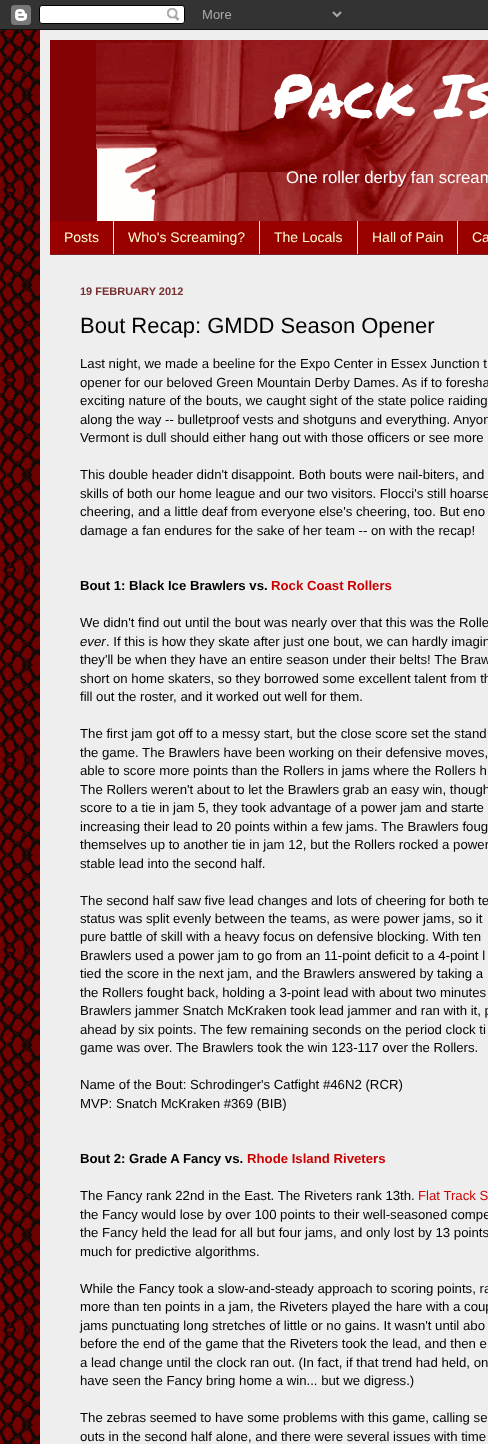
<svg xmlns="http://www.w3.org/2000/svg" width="488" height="1444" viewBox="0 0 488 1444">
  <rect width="100%" height="100%" fill="rgb(255,255,255)"/>
  <image x="0" y="400" width="40" height="1044" href="pic1.png"/>
  <image x="0" y="30" width="40" height="370" href="pic3.png"/>
  <rect x="40" y="30" width="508" height="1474" fill="rgba(0,0,0,0.15)" filter="blur(20px)"/>
  <image x="0" y="0" width="488" height="30" href="pic2.png"/>
  <rect x="40" y="30" width="448" height="1414" fill="rgb(238,238,238)"/>
  <image x="50" y="40" width="438" height="181" href="pic4.png"/>
  <text x="272" y="118" font-family="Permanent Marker" font-size="60" fill="rgb(255,255,255)">Pack Is</text>
  <text x="286" y="183" font-family="Liberation Sans" font-size="16.75" fill="rgb(255,255,255)">One roller derby fan scream</text>
  <rect x="50" y="221" width="438" height="33" fill="rgb(153,0,0)"/>
  <rect x="50" y="254" width="438" height="1" fill="rgb(119,34,34)"/>
  <text x="64" y="242" font-family="Liberation Sans" font-size="14" fill="rgb(255,255,208)">Posts</text>
  <rect x="113" y="221" width="1" height="33" fill="rgb(238,238,238)"/>
  <text x="128" y="242" font-family="Liberation Sans" font-size="14" fill="rgb(255,255,208)">Who's Screaming?</text>
  <rect x="259" y="221" width="1" height="33" fill="rgb(238,238,238)"/>
  <text x="274" y="242" font-family="Liberation Sans" font-size="14" fill="rgb(255,255,208)">The Locals</text>
  <rect x="357" y="221" width="1" height="33" fill="rgb(238,238,238)"/>
  <text x="372" y="242" font-family="Liberation Sans" font-size="14" fill="rgb(255,255,208)">Hall of Pain</text>
  <rect x="457" y="221" width="1" height="33" fill="rgb(238,238,238)"/>
  <text x="472" y="242" font-family="Liberation Sans" font-size="14" fill="rgb(255,255,208)">Ca</text>
  <text x="80" y="295" font-family="Liberation Sans" font-size="11" font-weight="bold" fill="rgb(118,47,47)">19 FEBRUARY 2012</text>
  <text x="80" y="333" font-family="Liberation Sans" font-size="22" fill="rgb(0,0,0)">Bout Recap: GMDD Season Opener</text>
  <g font-family="Liberation Sans" font-size="13.2" fill="rgb(0,0,0)">
    <text>
      <tspan x="80" y="368">Last night, we made a beeline for the Expo Center in Essex Junction t</tspan>
      <tspan x="80" y="387">opener for our beloved Green Mountain Derby Dames. As if to foresha</tspan>
      <tspan x="80" y="405">exciting nature of the bouts, we caught sight of the state police raiding</tspan>
      <tspan x="80" y="424">along the way -- bulletproof vests and shotguns and everything. Anyon</tspan>
      <tspan x="80" y="442">Vermont is dull should either hang out with those officers or see more</tspan>
    </text>
    <text>
      <tspan x="80" y="479">This double header didn't disappoint. Both bouts were nail-biters, and</tspan>
      <tspan x="80" y="498">skills of both our home league and our two visitors. Flocci's still hoarse</tspan>
      <tspan x="80" y="516">cheering, and a little deaf from everyone else's cheering, too. But eno</tspan>
      <tspan x="80" y="535">damage a fan endures for the sake of her team -- on with the recap!</tspan>
    </text>
  </g>
  <text x="80" y="590" font-family="Liberation Sans" font-size="13.2" font-weight="bold" fill="rgb(0,0,0)">Bout 1: Black Ice Brawlers vs.</text>
  <text x="271" y="590" font-family="Liberation Sans" font-size="13.2" font-weight="bold" fill="rgb(204,0,0)">Rock Coast Rollers</text>
  <text x="80" y="627" font-family="Liberation Sans" font-size="13.2" fill="rgb(0,0,0)">We didn't find out until the bout was nearly over that this was the Rolle</text>
  <text x="80" y="646" font-family="Liberation Sans" font-size="13.2" font-style="italic" fill="rgb(0,0,0)">ever</text>
  <g font-family="Liberation Sans" font-size="13.2" fill="rgb(0,0,0)">
    <text x="106" y="646">. If this is how they skate after just one bout, we can hardly imagin</text>
    <text>
      <tspan x="80" y="664">they'll be when they have an entire season under their belts! The Braw</tspan>
      <tspan x="80" y="683">short on home skaters, so they borrowed some excellent talent from th</tspan>
      <tspan x="80" y="701">fill out the roster, and it worked out well for them.</tspan>
    </text>
    <text>
      <tspan x="80" y="738">The first jam got off to a messy start, but the close score set the stand</tspan>
      <tspan x="80" y="757">the game. The Brawlers have been working on their defensive moves,</tspan>
      <tspan x="80" y="775">able to score more points than the Rollers in jams where the Rollers h</tspan>
      <tspan x="80" y="794">The Rollers weren't about to let the Brawlers grab an easy win, though</tspan>
      <tspan x="80" y="812">score to a tie in jam 5, they took advantage of a power jam and starte</tspan>
      <tspan x="80" y="831">increasing their lead to 20 points within a few jams. The Brawlers foug</tspan>
      <tspan x="80" y="849">themselves up to another tie in jam 12, but the Rollers rocked a power</tspan>
      <tspan x="80" y="868">stable lead into the second half.</tspan>
    </text>
    <text>
      <tspan x="80" y="905">The second half saw five lead changes and lots of cheering for both te</tspan>
      <tspan x="80" y="923">status was split evenly between the teams, as were power jams, so it</tspan>
      <tspan x="80" y="941">pure battle of skill with a heavy focus on defensive blocking. With ten</tspan>
      <tspan x="80" y="960">Brawlers used a power jam to go from an 11-point deficit to a 4-point l</tspan>
      <tspan x="80" y="978">tied the score in the next jam, and the Brawlers answered by taking a</tspan>
      <tspan x="80" y="997">the Rollers fought back, holding a 3-point lead with about two minutes</tspan>
      <tspan x="80" y="1015">Brawlers jammer Snatch McKraken took lead jammer and ran with it, p</tspan>
      <tspan x="80" y="1034">ahead by six points. The few remaining seconds on the period clock ti</tspan>
      <tspan x="80" y="1052">game was over. The Brawlers took the win 123-117 over the Rollers.</tspan>
    </text>
    <text>
      <tspan x="80" y="1089">Name of the Bout: Schrodinger's Catfight #46N2 (RCR)</tspan>
      <tspan x="80" y="1108">MVP: Snatch McKraken #369 (BIB)</tspan>
    </text>
  </g>
  <text x="80" y="1163" font-family="Liberation Sans" font-size="13.2" font-weight="bold" fill="rgb(0,0,0)">Bout 2: Grade A Fancy vs.</text>
  <text x="247" y="1163" font-family="Liberation Sans" font-size="13.2" font-weight="bold" fill="rgb(204,0,0)">Rhode Island Riveters</text>
  <text x="80" y="1200" font-family="Liberation Sans" font-size="13.2" fill="rgb(0,0,0)">The Fancy rank 22nd in the East. The Riveters rank 13th.</text>
  <text x="418" y="1200" font-family="Liberation Sans" font-size="13.2" fill="rgb(204,0,0)">Flat Track S</text>
  <g font-family="Liberation Sans" font-size="13.2" fill="rgb(0,0,0)">
    <text>
      <tspan x="80" y="1219">the Fancy would lose by over 100 points to their well-seasoned compe</tspan>
      <tspan x="80" y="1237">the Fancy held the lead for all but four jams, and only lost by 13 points</tspan>
      <tspan x="80" y="1256">much for predictive algorithms.</tspan>
    </text>
    <text>
      <tspan x="80" y="1293">While the Fancy took a slow-and-steady approach to scoring points, ra</tspan>
      <tspan x="80" y="1311">more than ten points in a jam, the Riveters played the hare with a coup</tspan>
      <tspan x="80" y="1330">jams punctuating long stretches of little or no gains. It wasn't until abo</tspan>
      <tspan x="80" y="1348">before the end of the game that the Riveters took the lead, and then e</tspan>
      <tspan x="80" y="1367">a lead change until the clock ran out. (In fact, if that trend had held, on</tspan>
      <tspan x="80" y="1385">have seen the Fancy bring home a win... but we digress.)</tspan>
    </text>
    <text>
      <tspan x="80" y="1422">The zebras seemed to have some problems with this game, calling se</tspan>
      <tspan x="80" y="1441">outs in the second half alone, and there were several issues with time</tspan>
    </text>
  </g>
</svg>
